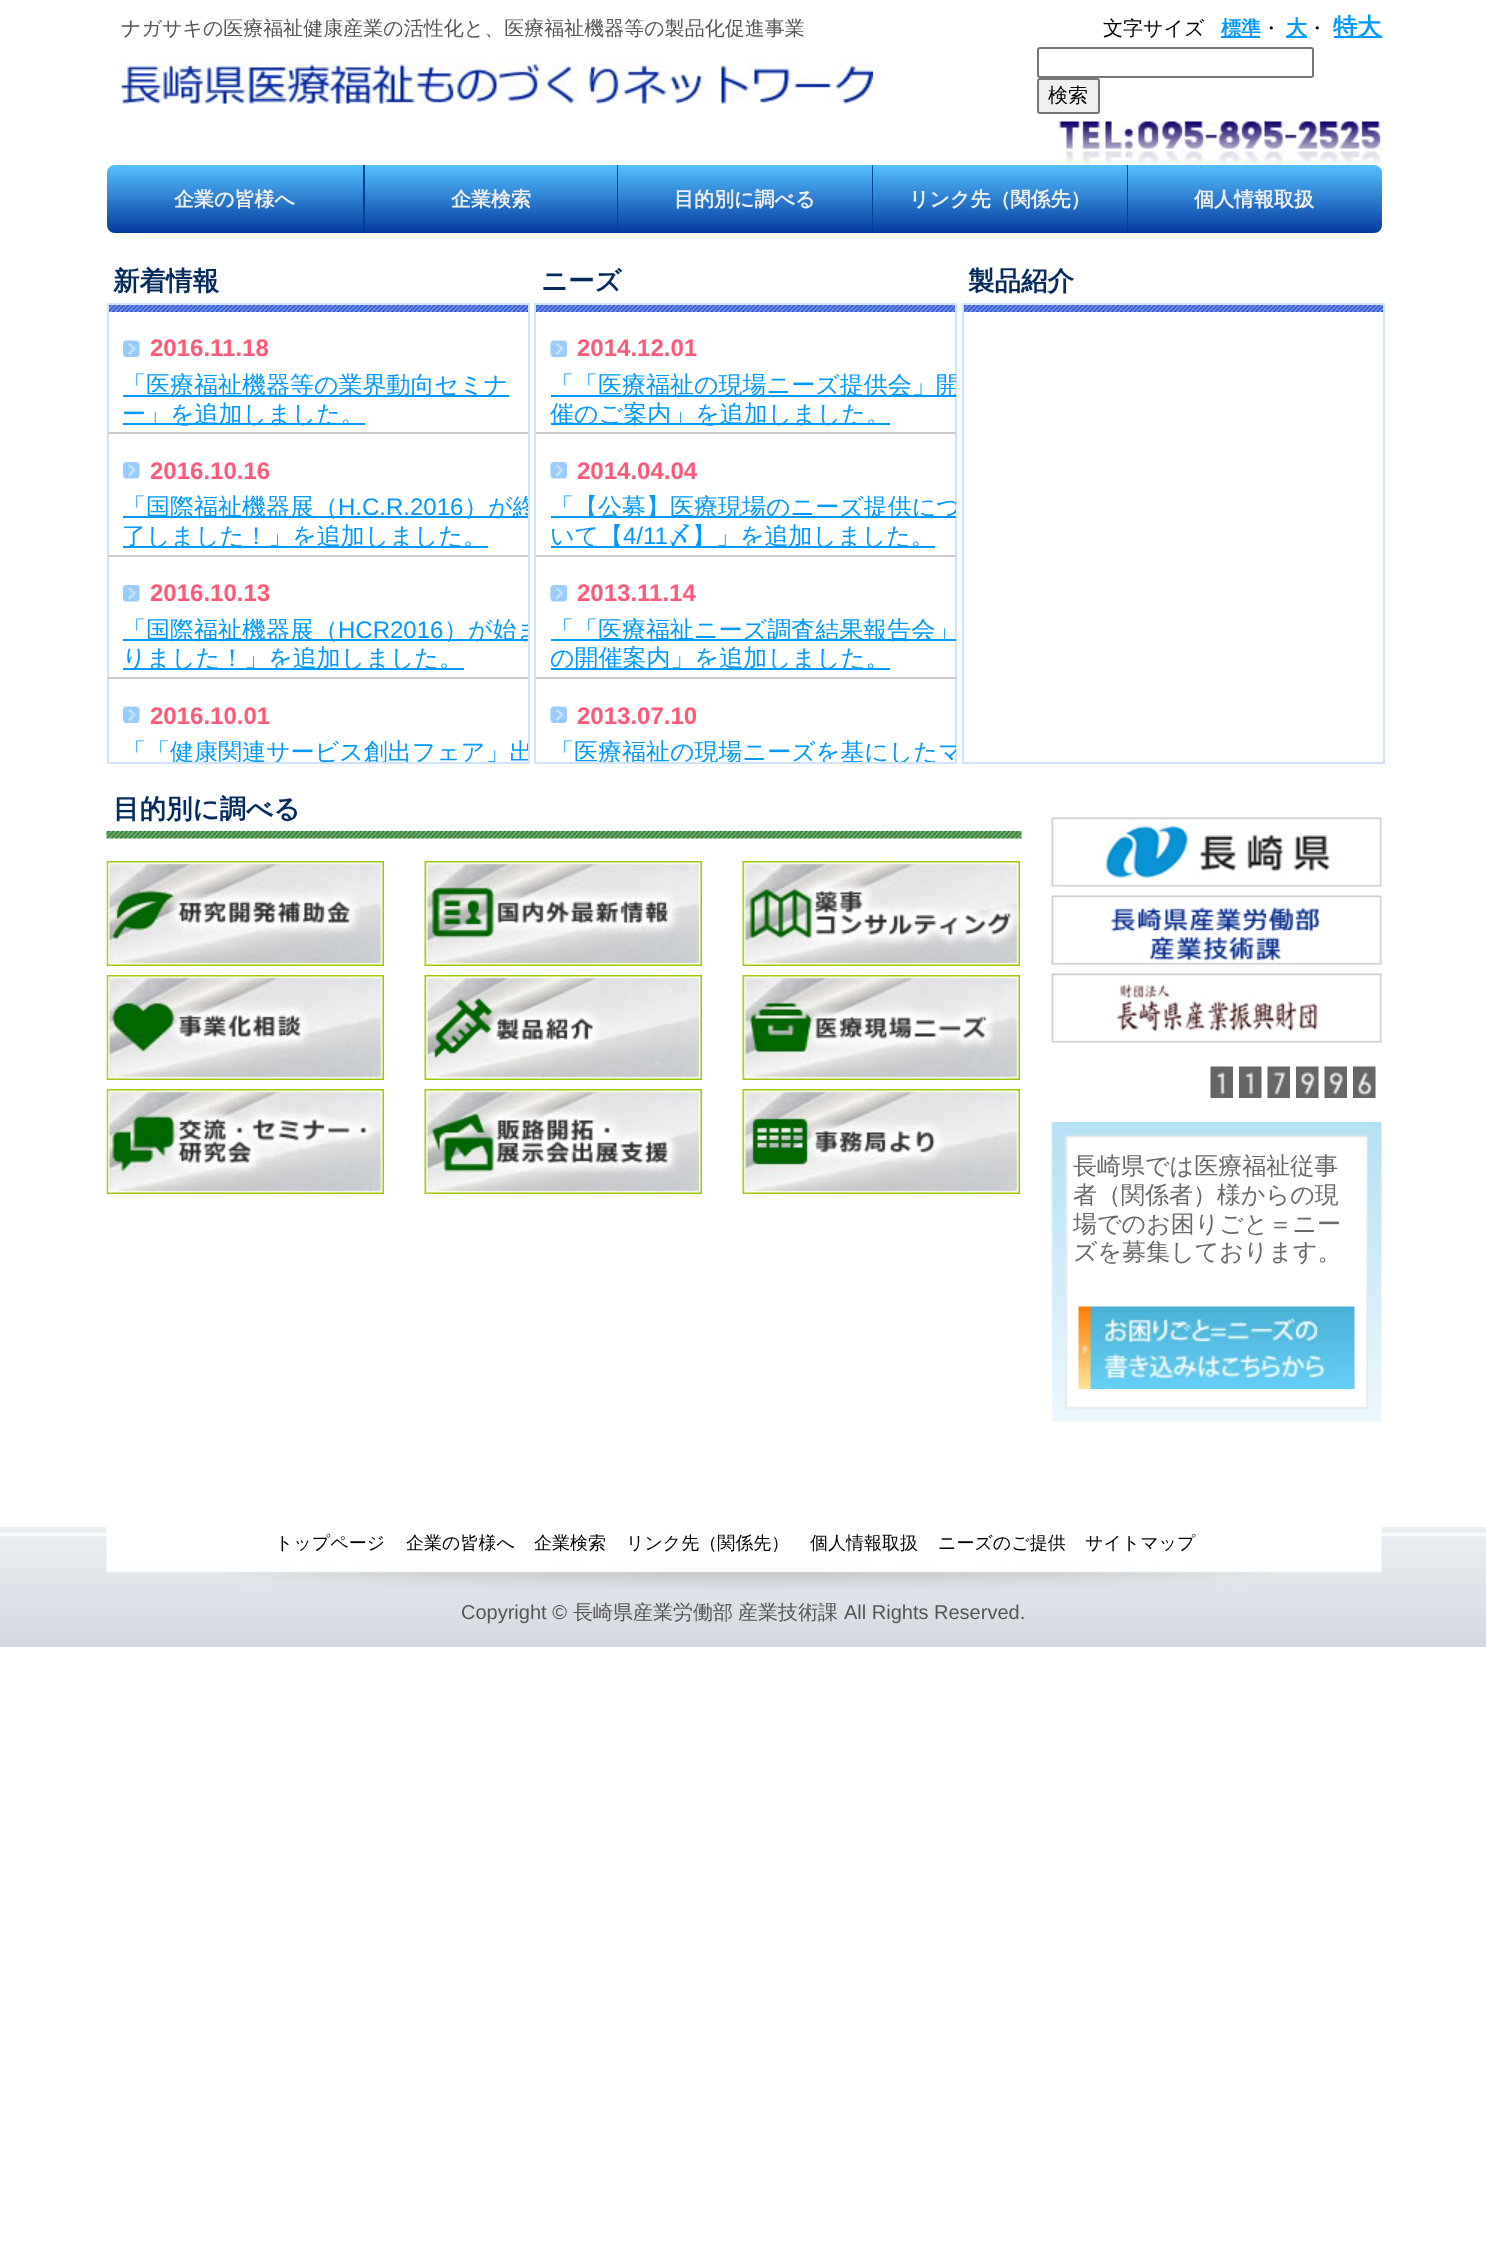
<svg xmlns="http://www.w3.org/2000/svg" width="1486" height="2255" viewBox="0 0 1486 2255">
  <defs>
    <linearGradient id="g1" gradientUnits="userSpaceOnUse" x1="235" y1="165" x2="235" y2="233"><stop offset="0" stop-color="rgb(84,192,255)"/><stop offset="1" stop-color="rgb(5,58,160)"/></linearGradient>
    <linearGradient id="g2" gradientUnits="userSpaceOnUse" x1="491" y1="165" x2="491" y2="233"><stop offset="0" stop-color="rgb(84,192,255)"/><stop offset="1" stop-color="rgb(5,58,160)"/></linearGradient>
    <linearGradient id="g3" gradientUnits="userSpaceOnUse" x1="745" y1="165" x2="745" y2="233"><stop offset="0" stop-color="rgb(84,192,255)"/><stop offset="1" stop-color="rgb(5,58,160)"/></linearGradient>
    <linearGradient id="g4" gradientUnits="userSpaceOnUse" x1="1000" y1="165" x2="1000" y2="233"><stop offset="0" stop-color="rgb(84,192,255)"/><stop offset="1" stop-color="rgb(5,58,160)"/></linearGradient>
    <linearGradient id="g5" gradientUnits="userSpaceOnUse" x1="1255" y1="165" x2="1255" y2="233"><stop offset="0" stop-color="rgb(84,192,255)"/><stop offset="1" stop-color="rgb(5,58,160)"/></linearGradient>
    <clipPath id="clip1"><rect x="108" y="312" width="420" height="450"/></clipPath>
    <clipPath id="clip2"><rect x="536" y="312" width="420" height="450"/></clipPath>
  </defs>
  <rect width="100%" height="100%" fill="rgb(255,255,255)"/>
  <text x="121" y="35" font-family="WenQuanYi Zen Hei" font-size="20" font-weight="500" fill="rgb(85,85,85)">ナガサキの医療福祉健康産業の活性化と、医療福祉機器等の製品化促進事業</text>
  <image x="121" y="63" width="752" height="41" href="pic1.png"/>
  <text x="1103" y="35" font-family="WenQuanYi Zen Hei" font-size="20" font-weight="500" fill="rgb(0,0,0)">文字サイズ</text>
  <rect x="1221" y="36" width="39" height="2" fill="rgb(0,153,255)"/>
  <text x="1221" y="35" font-family="WenQuanYi Zen Hei" font-size="20" font-weight="bold" fill="rgb(0,153,255)">標準</text>
  <text x="1261" y="35" font-family="WenQuanYi Zen Hei" font-size="20" font-weight="500" fill="rgb(0,0,0)">・</text>
  <rect x="1286" y="36" width="21" height="2" fill="rgb(0,153,255)"/>
  <text x="1286" y="35" font-family="WenQuanYi Zen Hei" font-size="21" font-weight="bold" fill="rgb(0,153,255)">大</text>
  <text x="1307" y="35" font-family="WenQuanYi Zen Hei" font-size="20" font-weight="500" fill="rgb(0,0,0)">・</text>
  <rect x="1334" y="36" width="48" height="2" fill="rgb(0,153,255)"/>
  <text x="1333" y="35" font-family="WenQuanYi Zen Hei" font-size="24" font-weight="bold" fill="rgb(0,153,255)">特大</text>
  <rect x="1038" y="48" width="275" height="29" rx="2" fill="none" stroke="rgb(118,118,118)" stroke-width="2"/>
  <rect x="1038" y="79" width="61" height="34" rx="2" fill="rgb(239,239,239)" stroke="rgb(118,118,118)" stroke-width="2"/>
  <text x="1048" y="102" font-family="WenQuanYi Zen Hei" font-size="20" font-weight="500" fill="rgb(0,0,0)">検索</text>
  <image x="1057" y="121" width="325" height="44" href="pic2.png"/>
  <path d="M115 165H365V233H115C110.5 233 107 229.5 107 225V173C107 168.5 110.5 165 115 165Z" fill="url(#g1)"/>
  <rect x="363" y="165" width="2" height="68" fill="rgb(0,62,152)"/>
  <text x="174" y="206" font-family="WenQuanYi Zen Hei" font-size="20" font-weight="bold" fill="rgb(238,238,238)">企業の皆様へ</text>
  <rect x="365" y="165" width="252" height="68" fill="url(#g2)"/>
  <rect x="617" y="165" width="1" height="68" fill="rgb(0,62,152)"/>
  <text x="451" y="206" font-family="WenQuanYi Zen Hei" font-size="20" font-weight="bold" fill="rgb(238,238,238)">企業検索</text>
  <rect x="618" y="165" width="254" height="68" fill="url(#g3)"/>
  <rect x="872" y="165" width="1" height="68" fill="rgb(0,62,152)"/>
  <text x="674" y="206" font-family="WenQuanYi Zen Hei" font-size="20" font-weight="bold" fill="rgb(238,238,238)">目的別に調べる</text>
  <rect x="873" y="165" width="254" height="68" fill="url(#g4)"/>
  <rect x="1127" y="165" width="1" height="68" fill="rgb(0,62,152)"/>
  <text x="909" y="206" font-family="WenQuanYi Zen Hei" font-size="20" font-weight="bold" fill="rgb(238,238,238)">リンク先（関係先）</text>
  <path d="M1128 165H1374C1378.5 165 1382 168.5 1382 173V225C1382 229.5 1378.5 233 1374 233H1128Z" fill="url(#g5)"/>
  <text x="1194" y="206" font-family="WenQuanYi Zen Hei" font-size="20" font-weight="bold" fill="rgb(238,238,238)">個人情報取扱</text>
  <text x="113" y="290" font-family="WenQuanYi Zen Hei" font-size="26.5" font-weight="bold" fill="rgb(5,43,93)">新着情報</text>
  <image x="109" y="305" width="419" height="7" href="pic3.png"/>
  <rect x="108" y="304" width="421" height="459" fill="none" stroke="rgb(207,228,248)" stroke-width="2"/>
  <image x="123" y="340" width="17" height="17" href="pic4.png"/>
  <text x="150" y="356" font-family="Liberation Sans" font-size="24" font-weight="bold" fill="rgb(255,89,119)">2016.11.18</text>
  <rect x="108" y="432" width="420" height="2" fill="rgb(204,204,204)"/>
  <rect x="123" y="395" width="386" height="2" fill="rgb(0,153,255)"/>
  <text x="122" y="393" font-family="WenQuanYi Zen Hei" font-size="24" font-weight="500" fill="rgb(0,153,255)">「医療福祉機器等の業界動向セミナ</text>
  <rect x="123" y="423" width="242" height="2" fill="rgb(0,153,255)"/>
  <text x="122" y="422" font-family="WenQuanYi Zen Hei" font-size="24" font-weight="500" fill="rgb(0,153,255)">ー」を追加しました。</text>
  <image x="123" y="462" width="17" height="17" href="pic5.png"/>
  <text x="150" y="479" font-family="Liberation Sans" font-size="24" font-weight="bold" fill="rgb(255,89,119)">2016.10.16</text>
  <rect x="108" y="555" width="420" height="2" fill="rgb(204,204,204)"/>
  <rect x="123" y="516" width="405" height="2" fill="rgb(0,153,255)"/>
  <text x="122" y="515" font-family="WenQuanYi Zen Hei" font-size="24" font-weight="500" fill="rgb(0,153,255)">「国際福祉機器展（</text>
  <text x="338" y="515" font-family="Liberation Sans" font-size="24" fill="rgb(0,153,255)">H.C.R.2016</text>
  <g clip-path="url(#clip1)">
    <text x="464" y="515" font-family="WenQuanYi Zen Hei" font-size="24" font-weight="500" fill="rgb(0,153,255)">）が終</text>
  </g>
  <rect x="123" y="546" width="365" height="2" fill="rgb(0,153,255)"/>
  <text x="122" y="544" font-family="WenQuanYi Zen Hei" font-size="24" font-weight="500" fill="rgb(0,153,255)">了しました！」を追加しました。</text>
  <image x="123" y="585" width="17" height="17" href="pic5.png"/>
  <text x="150" y="601" font-family="Liberation Sans" font-size="24" font-weight="bold" fill="rgb(255,89,119)">2016.10.13</text>
  <rect x="108" y="677" width="420" height="2" fill="rgb(204,204,204)"/>
  <rect x="123" y="639" width="405" height="2" fill="rgb(0,153,255)"/>
  <text x="122" y="638" font-family="WenQuanYi Zen Hei" font-size="24" font-weight="500" fill="rgb(0,153,255)">「国際福祉機器展（</text>
  <text x="338" y="638" font-family="Liberation Sans" font-size="24" fill="rgb(0,153,255)">HCR2016</text>
  <g clip-path="url(#clip1)">
    <text x="444" y="638" font-family="WenQuanYi Zen Hei" font-size="24" font-weight="500" fill="rgb(0,153,255)">）が始ま</text>
  </g>
  <rect x="123" y="668" width="341" height="2" fill="rgb(0,153,255)"/>
  <text x="122" y="666" font-family="WenQuanYi Zen Hei" font-size="24" font-weight="500" fill="rgb(0,153,255)">りました！」を追加しました。</text>
  <image x="123" y="706" width="17" height="17" href="pic4.png"/>
  <text x="150" y="724" font-family="Liberation Sans" font-size="24" font-weight="bold" fill="rgb(255,89,119)">2016.10.01</text>
  <g clip-path="url(#clip1)">
    <text x="122" y="760" font-family="WenQuanYi Zen Hei" font-size="24" font-weight="500" fill="rgb(0,153,255)">「「健康関連サービス創出フェア」出</text>
  </g>
  <text x="541" y="290" font-family="WenQuanYi Zen Hei" font-size="26.5" font-weight="bold" fill="rgb(5,43,93)">ニーズ</text>
  <image x="536" y="305" width="419" height="7" href="pic6.png"/>
  <rect x="535" y="304" width="421" height="459" fill="none" stroke="rgb(207,228,248)" stroke-width="2"/>
  <image x="550" y="340" width="17" height="17" href="pic7.png"/>
  <text x="577" y="356" font-family="Liberation Sans" font-size="24" font-weight="bold" fill="rgb(255,89,119)">2014.12.01</text>
  <rect x="536" y="432" width="420" height="2" fill="rgb(204,204,204)"/>
  <rect x="551" y="395" width="405" height="2" fill="rgb(0,153,255)"/>
  <g clip-path="url(#clip2)">
    <text x="550" y="393" font-family="WenQuanYi Zen Hei" font-size="24" font-weight="500" fill="rgb(0,153,255)">「「医療福祉の現場ニーズ提供会」開</text>
  </g>
  <rect x="551" y="423" width="339" height="2" fill="rgb(0,153,255)"/>
  <text x="550" y="422" font-family="WenQuanYi Zen Hei" font-size="24" font-weight="500" fill="rgb(0,153,255)">催のご案内」を追加しました。</text>
  <image x="550" y="462" width="17" height="17" href="pic8.png"/>
  <text x="577" y="479" font-family="Liberation Sans" font-size="24" font-weight="bold" fill="rgb(255,89,119)">2014.04.04</text>
  <rect x="536" y="555" width="420" height="2" fill="rgb(204,204,204)"/>
  <rect x="551" y="516" width="405" height="2" fill="rgb(0,153,255)"/>
  <g clip-path="url(#clip2)">
    <text x="550" y="515" font-family="WenQuanYi Zen Hei" font-size="24" font-weight="500" fill="rgb(0,153,255)">「【公募】医療現場のニーズ提供につ</text>
  </g>
  <rect x="551" y="546" width="384" height="2" fill="rgb(0,153,255)"/>
  <text x="550" y="544" font-family="WenQuanYi Zen Hei" font-size="24" font-weight="500" fill="rgb(0,153,255)">いて【</text>
  <text x="623" y="544" font-family="Liberation Sans" font-size="24" fill="rgb(0,153,255)">4/11</text>
  <text x="668" y="544" font-family="WenQuanYi Zen Hei" font-size="24" font-weight="500" fill="rgb(0,153,255)">〆】」を追加しました。</text>
  <image x="550" y="585" width="17" height="17" href="pic8.png"/>
  <text x="577" y="601" font-family="Liberation Sans" font-size="24" font-weight="bold" fill="rgb(255,89,119)">2013.11.14</text>
  <rect x="536" y="677" width="420" height="2" fill="rgb(204,204,204)"/>
  <rect x="551" y="639" width="405" height="2" fill="rgb(0,153,255)"/>
  <text x="550" y="638" font-family="WenQuanYi Zen Hei" font-size="24" font-weight="500" fill="rgb(0,153,255)">「「医療福祉ニーズ調査結果報告会」</text>
  <rect x="551" y="668" width="339" height="2" fill="rgb(0,153,255)"/>
  <text x="550" y="666" font-family="WenQuanYi Zen Hei" font-size="24" font-weight="500" fill="rgb(0,153,255)">の開催案内」を追加しました。</text>
  <image x="550" y="706" width="17" height="17" href="pic7.png"/>
  <text x="577" y="724" font-family="Liberation Sans" font-size="24" font-weight="bold" fill="rgb(255,89,119)">2013.07.10</text>
  <g clip-path="url(#clip2)">
    <text x="550" y="760" font-family="WenQuanYi Zen Hei" font-size="24" font-weight="500" fill="rgb(0,153,255)">「医療福祉の現場ニーズを基にしたマ</text>
  </g>
  <text x="968" y="290" font-family="WenQuanYi Zen Hei" font-size="26.5" font-weight="bold" fill="rgb(5,43,93)">製品紹介</text>
  <image x="964" y="305" width="419" height="7" href="pic3.png"/>
  <rect x="963" y="304" width="421" height="459" fill="none" stroke="rgb(207,228,248)" stroke-width="2"/>
  <text x="113" y="818" font-family="WenQuanYi Zen Hei" font-size="26.5" font-weight="bold" fill="rgb(5,43,93)">目的別に調べる</text>
  <image x="106" y="831" width="916" height="8" href="pic9.png"/>
  <image x="106" y="861" width="278" height="105" href="pic10.png"/>
  <image x="424" y="861" width="278" height="105" href="pic11.png"/>
  <image x="742" y="861" width="278" height="105" href="pic12.png"/>
  <image x="106" y="975" width="278" height="105" href="pic13.png"/>
  <image x="424" y="975" width="278" height="105" href="pic14.png"/>
  <image x="742" y="975" width="278" height="105" href="pic15.png"/>
  <image x="106" y="1089" width="278" height="105" href="pic16.png"/>
  <image x="424" y="1089" width="278" height="105" href="pic17.png"/>
  <image x="742" y="1089" width="278" height="105" href="pic18.png"/>
  <image x="1051" y="817" width="331" height="70" href="pic19.png"/>
  <image x="1051" y="895" width="331" height="70" href="pic20.png"/>
  <image x="1051" y="973" width="331" height="70" href="pic21.png"/>
  <image x="1210" y="1066" width="23" height="32" href="pic22.png"/>
  <image x="1239" y="1066" width="23" height="32" href="pic23.png"/>
  <image x="1267" y="1066" width="23" height="32" href="pic24.png"/>
  <image x="1296" y="1066" width="23" height="32" href="pic25.png"/>
  <image x="1324" y="1066" width="23" height="32" href="pic26.png"/>
  <image x="1353" y="1066" width="23" height="32" href="pic27.png"/>
  <image x="1051" y="1122" width="331" height="300" href="pic28.png"/>
  <g font-family="WenQuanYi Zen Hei" font-size="24" font-weight="500" fill="rgb(105,105,105)">
    <text>
      <tspan x="1073" y="1174">長崎県では医療福祉従事</tspan>
      <tspan x="1073" y="1203">者（関係者）様からの現</tspan>
      <tspan x="1073" y="1232">場でのお困りごと＝ニー</tspan>
      <tspan x="1073" y="1260">ズを募集しております。</tspan>
    </text>
  </g>
  <image x="1078" y="1306" width="277" height="83" href="pic29.png"/>
  <image x="0" y="1527" width="1486" height="120" href="pic30.png"/>
  <image x="106" y="1527" width="1276" height="62" href="pic31.png"/>
  <g font-family="WenQuanYi Zen Hei" font-size="18" font-weight="500" fill="rgb(0,0,0)">
    <text x="275" y="1549">トップページ</text>
    <text x="406" y="1549">企業の皆様へ</text>
    <text x="534" y="1549">企業検索</text>
    <text x="626" y="1549">リンク先（関係先）</text>
    <text x="810" y="1549">個人情報取扱</text>
    <text x="938" y="1549">ニーズのご提供</text>
    <text x="1085" y="1549">サイトマップ</text>
  </g>
  <text x="461" y="1619" font-family="Liberation Sans" font-size="20" fill="rgb(85,85,85)">Copyright ©</text>
  <g font-family="WenQuanYi Zen Hei" font-size="20" font-weight="500" fill="rgb(85,85,85)">
    <text x="573" y="1619">長崎県産業労働部</text>
    <text x="738" y="1619">産業技術課</text>
  </g>
  <text x="844" y="1619" font-family="Liberation Sans" font-size="20" fill="rgb(85,85,85)">All Rights Reserved.</text>
</svg>
